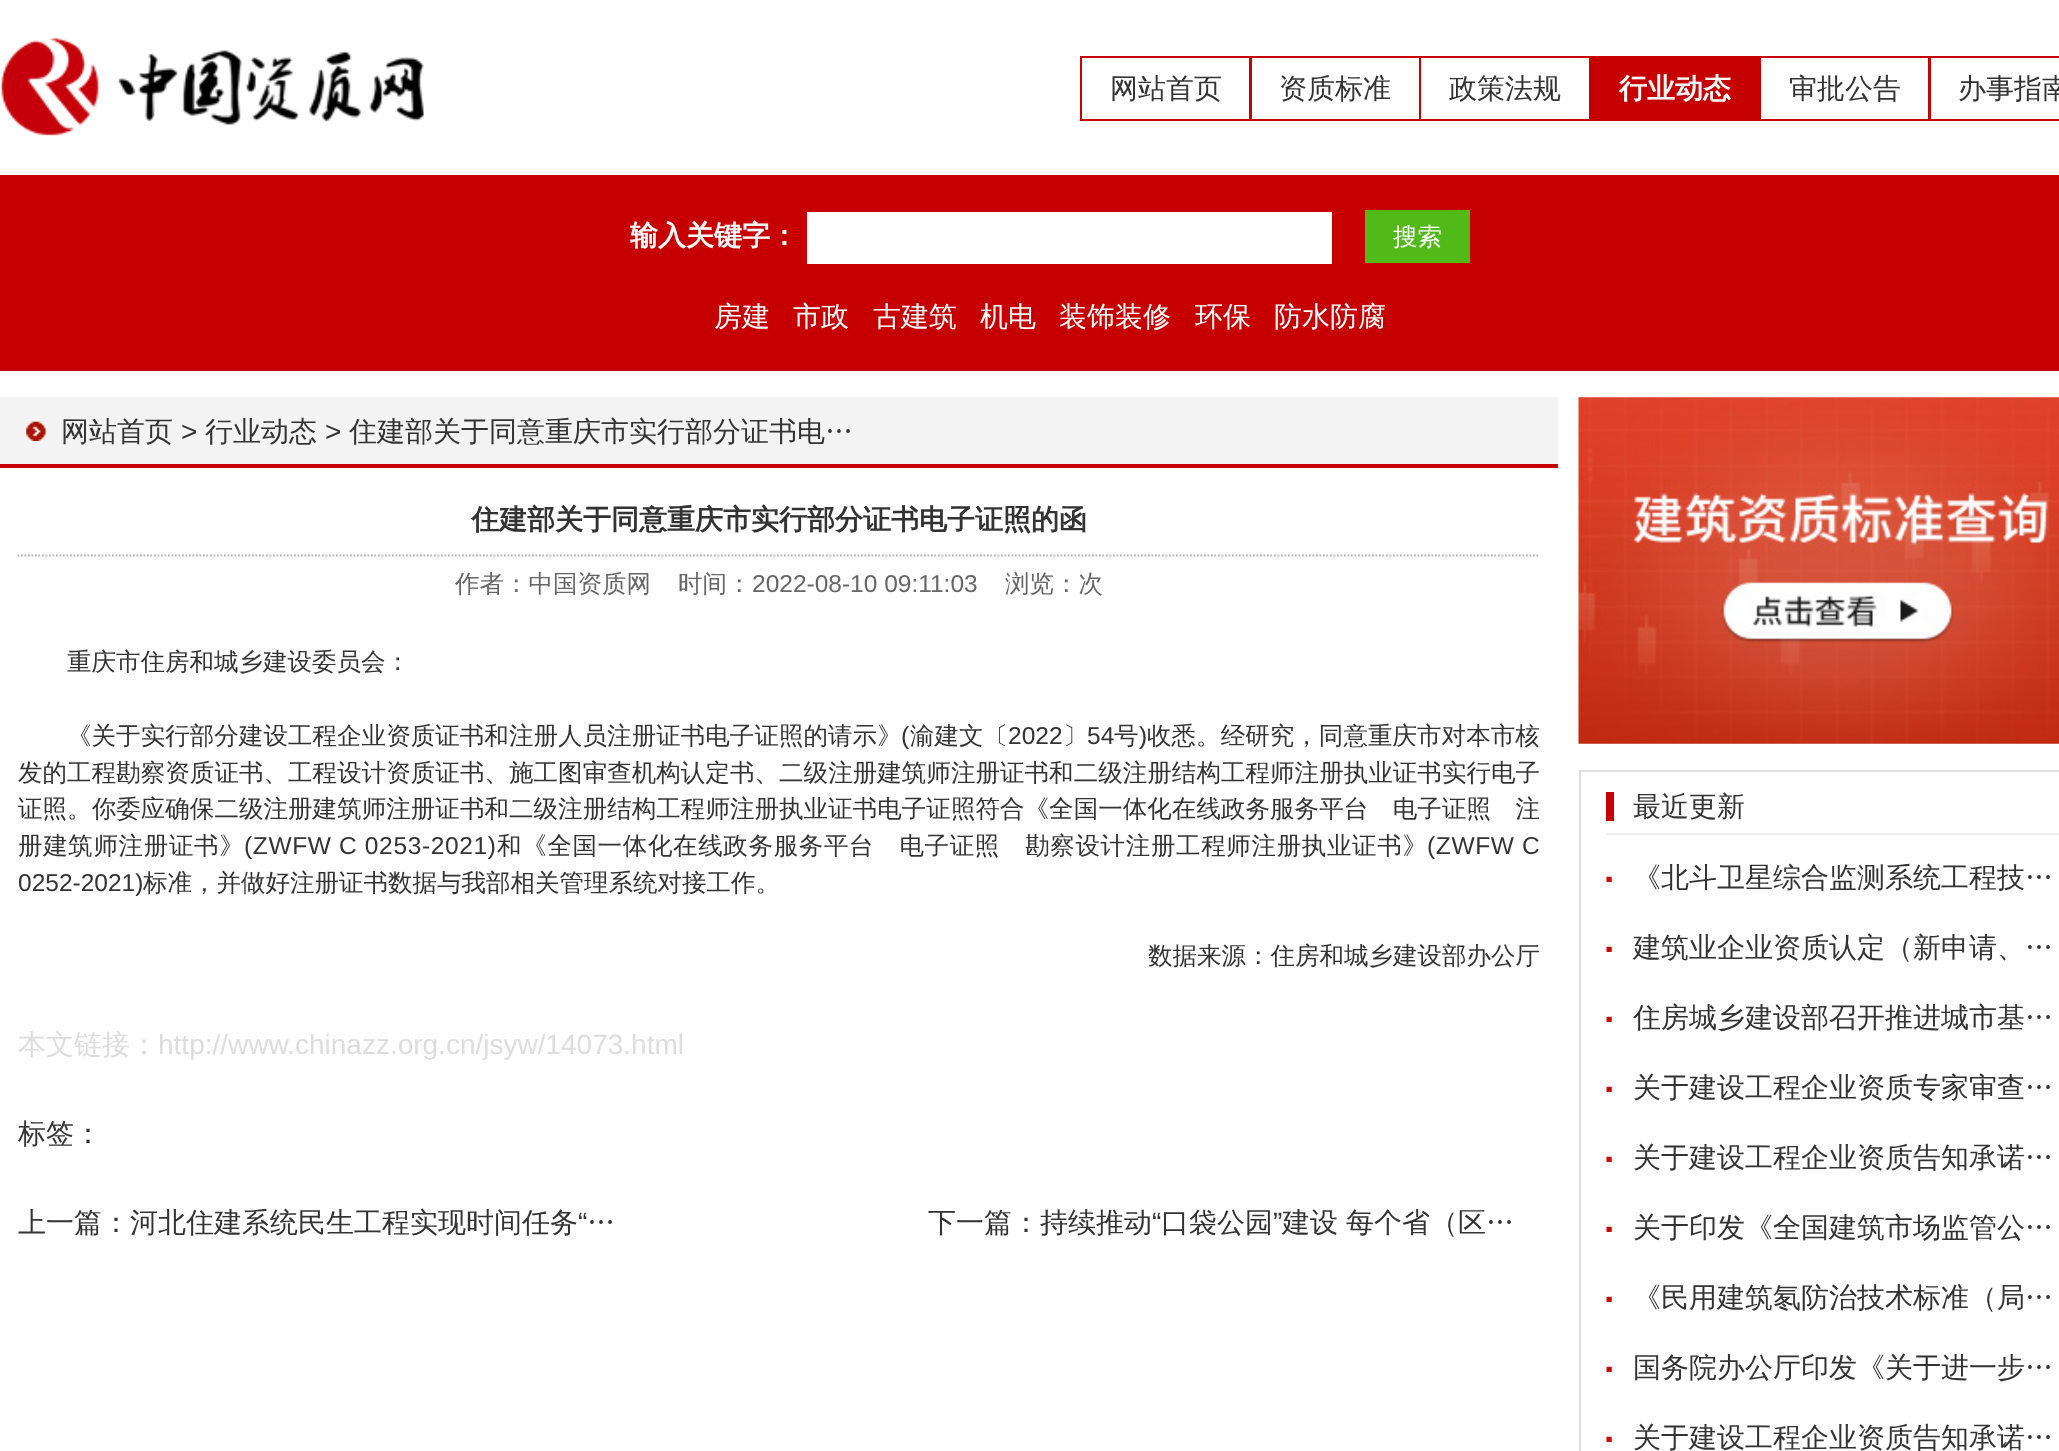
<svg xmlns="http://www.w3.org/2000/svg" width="2059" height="1451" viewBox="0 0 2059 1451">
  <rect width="100%" height="100%" fill="rgb(255,255,255)"/>
  <image x="1" y="38" width="423" height="98" href="pic1.png"/>
  <rect x="1081" y="57" width="169" height="63" fill="none" stroke="rgb(198,0,0)" stroke-width="2"/>
  <text x="1110" y="98" font-family="WenQuanYi Zen Hei" font-size="28" font-weight="500" fill="rgb(51,51,51)">网站首页</text>
  <rect x="1251" y="57" width="169" height="63" fill="none" stroke="rgb(198,0,0)" stroke-width="2"/>
  <text x="1279" y="98" font-family="WenQuanYi Zen Hei" font-size="28" font-weight="500" fill="rgb(51,51,51)">资质标准</text>
  <rect x="1420" y="57" width="170" height="63" fill="none" stroke="rgb(198,0,0)" stroke-width="2"/>
  <text x="1449" y="98" font-family="WenQuanYi Zen Hei" font-size="28" font-weight="500" fill="rgb(51,51,51)">政策法规</text>
  <rect x="1591" y="56" width="168" height="65" fill="rgb(198,0,0)"/>
  <text x="1619" y="98" font-family="WenQuanYi Zen Hei" font-size="28" font-weight="bold" fill="rgb(255,255,255)">行业动态</text>
  <rect x="1760" y="57" width="169" height="63" fill="none" stroke="rgb(198,0,0)" stroke-width="2"/>
  <text x="1789" y="98" font-family="WenQuanYi Zen Hei" font-size="28" font-weight="500" fill="rgb(51,51,51)">审批公告</text>
  <rect x="1930" y="57" width="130" height="63" fill="none" stroke="rgb(198,0,0)" stroke-width="2"/>
  <text x="1958" y="98" font-family="WenQuanYi Zen Hei" font-size="28" font-weight="500" fill="rgb(51,51,51)">办事指南</text>
  <rect x="0" y="175" width="2059" height="196" fill="rgb(198,0,0)"/>
  <text x="630" y="245" font-family="WenQuanYi Zen Hei" font-size="28" font-weight="bold" fill="rgb(255,255,255)">输入关键字：</text>
  <rect x="807" y="212" width="525" height="52" fill="rgb(255,255,255)"/>
  <rect x="1365" y="210" width="105" height="53" fill="rgb(82,186,24)"/>
  <text x="1393" y="245" font-family="WenQuanYi Zen Hei" font-size="24.5" font-weight="500" fill="rgb(255,255,255)">搜索</text>
  <g font-family="WenQuanYi Zen Hei" font-size="28" font-weight="500" fill="rgb(255,255,255)">
    <text x="714" y="326">房建</text>
    <text x="793" y="326">市政</text>
    <text x="873" y="326">古建筑</text>
    <text x="980" y="326">机电</text>
    <text x="1059" y="326">装饰装修</text>
    <text x="1195" y="326">环保</text>
    <text x="1274" y="326">防水防腐</text>
  </g>
  <rect x="0" y="397" width="1558" height="67" fill="rgb(243,243,243)"/>
  <rect x="0" y="464" width="1558" height="4" fill="rgb(198,0,0)"/>
  <image x="26" y="421" width="20" height="20" href="pic2.png"/>
  <text x="61" y="441" font-family="WenQuanYi Zen Hei" font-size="28" font-weight="500" fill="rgb(51,51,51)">网站首页</text>
  <text x="181" y="441" font-family="Liberation Sans" font-size="28" fill="rgb(51,51,51)">&gt;</text>
  <text x="205" y="441" font-family="WenQuanYi Zen Hei" font-size="28" font-weight="500" fill="rgb(51,51,51)">行业动态</text>
  <text x="325" y="441" font-family="Liberation Sans" font-size="28" fill="rgb(51,51,51)">&gt;</text>
  <text x="349" y="441" font-family="WenQuanYi Zen Hei" font-size="28" font-weight="500" fill="rgb(51,51,51)">住建部关于同意重庆市实行部分证书电…</text>
  <path d="M17.5 555.5H1540" fill="none" stroke="rgb(177,177,177)" stroke-width="1.8" stroke-dasharray="1.75 1.75"/>
  <text x="471" y="529" font-family="WenQuanYi Zen Hei" font-size="28" font-weight="bold" fill="rgb(51,51,51)">住建部关于同意重庆市实行部分证书电子证照的函</text>
  <g font-family="WenQuanYi Zen Hei" font-size="24.5" font-weight="500" fill="rgb(102,102,102)">
    <text x="455" y="592">作者：中国资质网</text>
    <text x="678" y="592">时间：</text>
  </g>
  <text x="752" y="592" font-family="Liberation Sans" font-size="24.5" fill="rgb(102,102,102)">2022-08-10 09:11:03</text>
  <text x="1005" y="592" font-family="WenQuanYi Zen Hei" font-size="24.5" font-weight="500" fill="rgb(102,102,102)">浏览：次</text>
  <text x="67" y="670" font-family="WenQuanYi Zen Hei" font-size="24.5" font-weight="500" fill="rgb(51,51,51)">重庆市住房和城乡建设委员会：</text>
  <text x="67" y="744" font-family="WenQuanYi Zen Hei" font-size="24.5" font-weight="500" letter-spacing="0.05" fill="rgb(51,51,51)">《关于实行部分建设工程企业资质证书和注册人员注册证书电子证照的请示》</text>
  <text x="901" y="744" font-family="Liberation Sans" font-size="24.5" letter-spacing="0.05" fill="rgb(51,51,51)">(</text>
  <text x="910" y="744" font-family="WenQuanYi Zen Hei" font-size="24.5" font-weight="500" letter-spacing="0.05" fill="rgb(51,51,51)">渝建文〔</text>
  <text x="1008" y="744" font-family="Liberation Sans" font-size="24.5" letter-spacing="0.05" fill="rgb(51,51,51)">2022</text>
  <text x="1063" y="744" font-family="WenQuanYi Zen Hei" font-size="24.5" font-weight="500" letter-spacing="0.05" fill="rgb(51,51,51)">〕</text>
  <text x="1087" y="744" font-family="Liberation Sans" font-size="24.5" letter-spacing="0.05" fill="rgb(51,51,51)">54</text>
  <text x="1114" y="744" font-family="WenQuanYi Zen Hei" font-size="24.5" font-weight="500" letter-spacing="0.05" fill="rgb(51,51,51)">号</text>
  <text x="1139" y="744" font-family="Liberation Sans" font-size="24.5" letter-spacing="0.05" fill="rgb(51,51,51)">)</text>
  <g font-family="WenQuanYi Zen Hei" font-size="24.5" font-weight="500" letter-spacing="0.05" fill="rgb(51,51,51)">
    <text x="1147" y="744">收悉。经研究，同意重庆市对本市核</text>
    <text>
      <tspan x="18" y="781">发的工程勘察资质证书、工程设计资质证书、施工图审查机构认定书、二级注册建筑师注册证书和二级注册结构工程师注册执业证书实行电子</tspan>
      <tspan x="18" y="817">证照。你委应确保二级注册建筑师注册证书和二级注册结构工程师注册执业证书电子证照符合《全国一体化在线政务服务平台　电子证照　注</tspan>
    </text>
  </g>
  <text x="18" y="854" font-family="WenQuanYi Zen Hei" font-size="24.5" font-weight="500" letter-spacing="0.65" fill="rgb(51,51,51)">册建筑师注册证书》</text>
  <text x="244" y="854" font-family="Liberation Sans" font-size="24.5" letter-spacing="0.65" fill="rgb(51,51,51)">(ZWFW C 0253-2021)</text>
  <text x="497" y="854" font-family="WenQuanYi Zen Hei" font-size="24.5" font-weight="500" letter-spacing="0.65" fill="rgb(51,51,51)">和《全国一体化在线政务服务平台　电子证照　勘察设计注册工程师注册执业证书》</text>
  <text x="1427" y="854" font-family="Liberation Sans" font-size="24.5" letter-spacing="0.65" fill="rgb(51,51,51)">(ZWFW C</text>
  <text x="18" y="891" font-family="Liberation Sans" font-size="24.5" fill="rgb(51,51,51)">0252-2021)</text>
  <g font-family="WenQuanYi Zen Hei" font-size="24.5" font-weight="500" fill="rgb(51,51,51)">
    <text x="143" y="891">标准，并做好注册证书数据与我部相关管理系统对接工作。</text>
    <text x="1148" y="964">数据来源：住房和城乡建设部办公厅</text>
  </g>
  <text x="18" y="1054" font-family="WenQuanYi Zen Hei" font-size="28" font-weight="500" fill="rgb(221,221,221)">本文链接：</text>
  <text x="158" y="1054" font-family="Liberation Sans" font-size="28" fill="rgb(221,221,221)">http://www.chinazz.org.cn/jsyw/14073.html</text>
  <g font-family="WenQuanYi Zen Hei" font-size="28" font-weight="500" fill="rgb(51,51,51)">
    <text x="18" y="1143">标签：</text>
    <text x="18" y="1232">上一篇：河北住建系统民生工程实现时间任务</text>
  </g>
  <text x="578" y="1232" font-family="Liberation Sans" font-size="28" fill="rgb(51,51,51)">“</text>
  <g font-family="WenQuanYi Zen Hei" font-size="28" font-weight="500" fill="rgb(51,51,51)">
    <text x="587" y="1232">…</text>
    <text x="928" y="1232">下一篇：持续推动</text>
  </g>
  <text x="1152" y="1232" font-family="Liberation Sans" font-size="28" fill="rgb(51,51,51)">“</text>
  <text x="1161" y="1232" font-family="WenQuanYi Zen Hei" font-size="28" font-weight="500" fill="rgb(51,51,51)">口袋公园</text>
  <text x="1273" y="1232" font-family="Liberation Sans" font-size="28" fill="rgb(51,51,51)">”</text>
  <g font-family="WenQuanYi Zen Hei" font-size="28" font-weight="500" fill="rgb(51,51,51)">
    <text x="1282" y="1232">建设</text>
    <text x="1346" y="1232">每个省（区…</text>
  </g>
  <image x="1578" y="397" width="481" height="347" href="pic3.png"/>
  <rect x="1580" y="771" width="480" height="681" fill="none" stroke="rgb(221,221,221)" stroke-width="2"/>
  <rect x="1606" y="792" width="8" height="29" fill="rgb(198,0,0)"/>
  <rect x="1607" y="833" width="452" height="2" fill="rgb(236,236,236)"/>
  <text x="1633" y="816" font-family="WenQuanYi Zen Hei" font-size="28" font-weight="500" fill="rgb(51,51,51)">最近更新</text>
  <image x="1606" y="876" width="6" height="6" href="pic4.png"/>
  <text x="1633" y="887" font-family="WenQuanYi Zen Hei" font-size="28" font-weight="500" fill="rgb(51,51,51)">《北斗卫星综合监测系统工程技…</text>
  <image x="1606" y="946" width="6" height="6" href="pic4.png"/>
  <text x="1633" y="957" font-family="WenQuanYi Zen Hei" font-size="28" font-weight="500" fill="rgb(51,51,51)">建筑业企业资质认定（新申请、…</text>
  <image x="1606" y="1016" width="6" height="6" href="pic4.png"/>
  <text x="1633" y="1027" font-family="WenQuanYi Zen Hei" font-size="28" font-weight="500" fill="rgb(51,51,51)">住房城乡建设部召开推进城市基…</text>
  <image x="1606" y="1086" width="6" height="6" href="pic4.png"/>
  <text x="1633" y="1097" font-family="WenQuanYi Zen Hei" font-size="28" font-weight="500" fill="rgb(51,51,51)">关于建设工程企业资质专家审查…</text>
  <image x="1606" y="1156" width="6" height="6" href="pic4.png"/>
  <text x="1633" y="1167" font-family="WenQuanYi Zen Hei" font-size="28" font-weight="500" fill="rgb(51,51,51)">关于建设工程企业资质告知承诺…</text>
  <image x="1606" y="1226" width="6" height="6" href="pic4.png"/>
  <text x="1633" y="1237" font-family="WenQuanYi Zen Hei" font-size="28" font-weight="500" fill="rgb(51,51,51)">关于印发《全国建筑市场监管公…</text>
  <image x="1606" y="1296" width="6" height="6" href="pic4.png"/>
  <text x="1633" y="1307" font-family="WenQuanYi Zen Hei" font-size="28" font-weight="500" fill="rgb(51,51,51)">《民用建筑氡防治技术标准（局…</text>
  <image x="1606" y="1366" width="6" height="6" href="pic4.png"/>
  <text x="1633" y="1377" font-family="WenQuanYi Zen Hei" font-size="28" font-weight="500" fill="rgb(51,51,51)">国务院办公厅印发《关于进一步…</text>
  <image x="1606" y="1436" width="6" height="6" href="pic4.png"/>
  <text x="1633" y="1447" font-family="WenQuanYi Zen Hei" font-size="28" font-weight="500" fill="rgb(51,51,51)">关于建设工程企业资质告知承诺…</text>
</svg>
